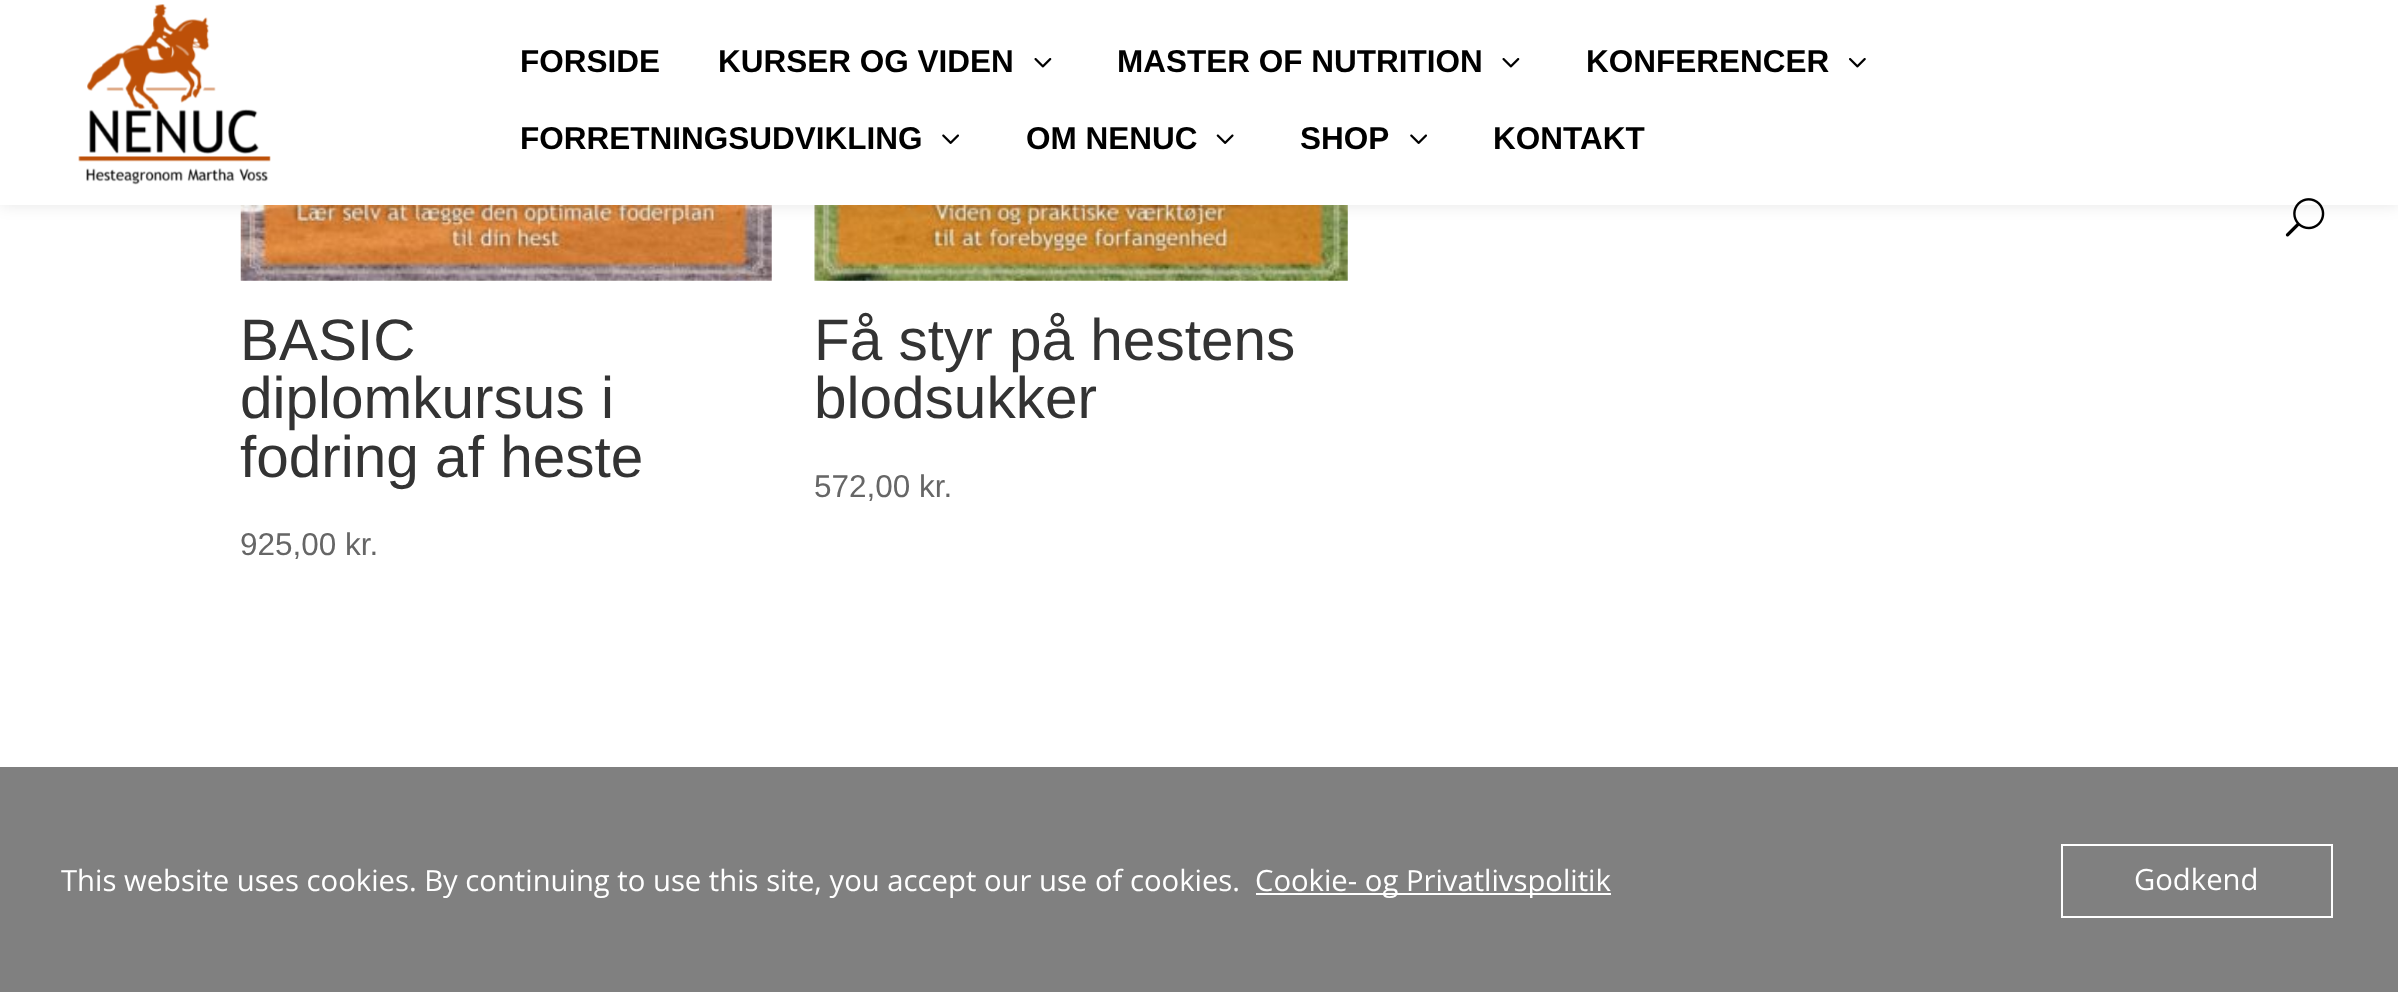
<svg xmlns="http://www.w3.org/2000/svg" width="2398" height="992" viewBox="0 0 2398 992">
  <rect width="100%" height="100%" fill="rgb(255,255,255)"/>
  <rect x="0" y="767" width="2398" height="225" fill="rgb(128,128,128)"/>
  <image x="240" y="205" width="532" height="76" href="pic7.png"/>
  <image x="814" y="205" width="534" height="76" href="pic8.png"/>
  <rect x="0" y="0" width="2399" height="205" fill="rgba(0,0,0,0.1)" filter="blur(8px)"/>
  <rect x="0" y="0" width="2398" height="205" fill="rgb(255,255,255)"/>
  <image x="78" y="4" width="193" height="181" href="pic1.png"/>
  <g font-family="Liberation Sans" font-size="31.5" font-weight="bold" fill="rgb(0,0,0)">
    <text x="520" y="72">FORSIDE</text>
    <text x="718" y="72">KURSER OG VIDEN</text>
  </g>
  <image x="1034" y="58" width="18" height="10" href="pic2.png"/>
  <text x="1117" y="72" font-family="Liberation Sans" font-size="31.5" font-weight="bold" fill="rgb(0,0,0)">MASTER OF NUTRITION</text>
  <image x="1502" y="58" width="18" height="10" href="pic2.png"/>
  <text x="1586" y="72" font-family="Liberation Sans" font-size="31.5" font-weight="bold" fill="rgb(0,0,0)">KONFERENCER</text>
  <image x="1849" y="58" width="17" height="10" href="pic3.png"/>
  <text x="520" y="149" font-family="Liberation Sans" font-size="31.5" font-weight="bold" fill="rgb(0,0,0)">FORRETNINGSUDVIKLING</text>
  <image x="942" y="134" width="17" height="10" href="pic4.png"/>
  <text x="1026" y="149" font-family="Liberation Sans" font-size="31.5" font-weight="bold" fill="rgb(0,0,0)">OM NENUC</text>
  <image x="1216" y="134" width="18" height="10" href="pic5.png"/>
  <text x="1300" y="149" font-family="Liberation Sans" font-size="31.5" font-weight="bold" fill="rgb(0,0,0)">SHOP</text>
  <image x="1410" y="134" width="17" height="10" href="pic4.png"/>
  <text x="1493" y="149" font-family="Liberation Sans" font-size="31.5" font-weight="bold" fill="rgb(0,0,0)">KONTAKT</text>
  <image x="2285" y="198" width="40" height="39" href="pic6.png"/>
  <g font-family="Liberation Sans" font-size="58.5" fill="rgb(51,51,51)">
    <text>
      <tspan x="240" y="360">BASIC</tspan>
      <tspan x="240" y="418">diplomkursus i</tspan>
      <tspan x="240" y="477">fodring af heste</tspan>
    </text>
  </g>
  <text x="240" y="555" font-family="Liberation Sans" font-size="31.5" fill="rgb(102,102,102)">925,00 kr.</text>
  <g font-family="Liberation Sans" font-size="58.5" fill="rgb(51,51,51)">
    <text>
      <tspan x="814" y="360">Få styr på hestens</tspan>
      <tspan x="814" y="418">blodsukker</tspan>
    </text>
  </g>
  <text x="814" y="497" font-family="Liberation Sans" font-size="31.5" fill="rgb(102,102,102)">572,00 kr.</text>
  <text x="61" y="891" font-family="Open Sans" font-size="29.25" fill="rgb(255,255,255)">This website uses cookies. By continuing to use this site, you accept our use of cookies.</text>
  <rect x="1256" y="893" width="355" height="2" fill="rgb(255,255,255)"/>
  <text x="1255" y="891" font-family="Open Sans" font-size="29.25" fill="rgb(255,255,255)">Cookie- og Privatlivspolitik</text>
  <rect x="2062" y="845" width="270" height="72" fill="none" stroke="rgb(255,255,255)" stroke-width="2"/>
  <text x="2134" y="890" font-family="Open Sans" font-size="29.25" fill="rgb(255,255,255)">Godkend</text>
</svg>
